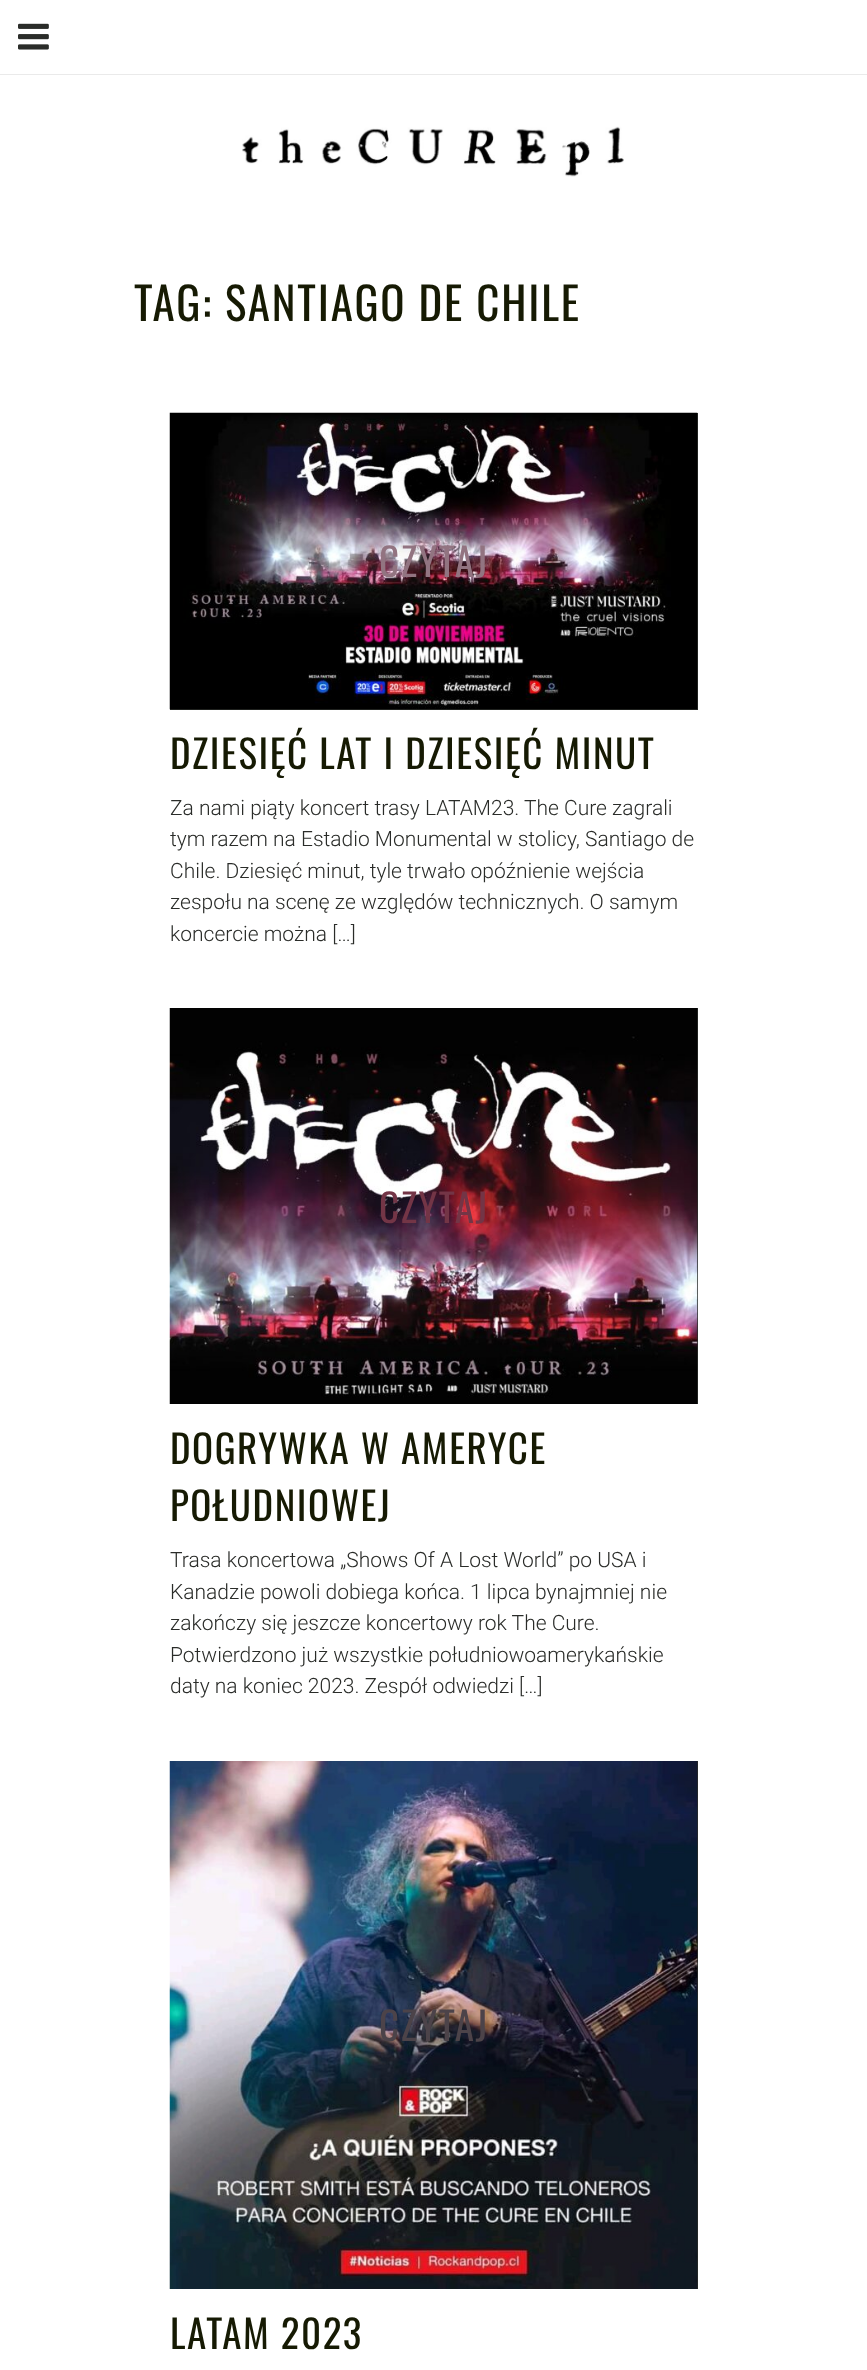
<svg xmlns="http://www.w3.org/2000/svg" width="867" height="2370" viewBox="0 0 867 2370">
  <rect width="100%" height="100%" fill="rgb(255,255,255)"/>
  <image x="18" y="23" width="31" height="27" href="pic1.png"/>
  <rect x="0" y="74" width="867" height="1" fill="rgb(234,234,234)"/>
  <image x="242" y="126" width="382" height="51" href="pic2.png"/>
  <text x="134" y="321" font-family="Oswald" font-size="45" letter-spacing="1.8" fill="rgb(22,26,3)">TAG: SANTIAGO DE CHILE</text>
  <rect x="170" y="413" width="528" height="297" fill="rgb(42,44,41)"/>
  <image x="169" y="412" width="529" height="298" href="pic3.png"/>
  <text x="379" y="577" font-family="Oswald" font-size="39" letter-spacing="1.55" fill="rgb(146,116,129)">CZYTAJ</text>
  <text x="170" y="769" font-family="Oswald" font-size="39" letter-spacing="1.55" fill="rgb(22,26,3)">DZIESIĘĆ LAT I DZIESIĘĆ MINUT</text>
  <g font-family="Roboto" font-size="21" font-weight="300" fill="rgb(42,44,41)">
    <text>
      <tspan x="170" y="815">Za nami piąty koncert trasy LATAM23. The Cure zagrali</tspan>
      <tspan x="170" y="846">tym razem na Estadio Monumental w stolicy, Santiago de</tspan>
      <tspan x="170" y="878">Chile. Dziesięć minut, tyle trwało opóźnienie wejścia</tspan>
      <tspan x="170" y="909">zespołu na scenę ze względów technicznych. O samym</tspan>
      <tspan x="170" y="941">koncercie można […]</tspan>
    </text>
  </g>
  <rect x="697" y="1008" width="1" height="396" fill="rgb(42,44,41)"/>
  <image x="169" y="1008" width="529" height="396" href="pic4.png"/>
  <text x="379" y="1223" font-family="Oswald" font-size="39" letter-spacing="1.55" fill="rgb(115,53,70)">CZYTAJ</text>
  <g font-family="Oswald" font-size="39" letter-spacing="1.55" fill="rgb(22,26,3)">
    <text>
      <tspan x="170" y="1464">DOGRYWKA W AMERYCE</tspan>
      <tspan x="170" y="1521">POŁUDNIOWEJ</tspan>
    </text>
  </g>
  <g font-family="Roboto" font-size="21" font-weight="300" fill="rgb(42,44,41)">
    <text>
      <tspan x="170" y="1567">Trasa koncertowa „Shows Of A Lost World” po USA i</tspan>
      <tspan x="170" y="1599">Kanadzie powoli dobiega końca. 1 lipca bynajmniej nie</tspan>
      <tspan x="170" y="1630">zakończy się jeszcze koncertowy rok The Cure.</tspan>
      <tspan x="170" y="1662">Potwierdzono już wszystkie południowoamerykańskie</tspan>
      <tspan x="170" y="1693">daty na koniec 2023. Zespół odwiedzi […]</tspan>
    </text>
  </g>
  <rect x="697" y="1761" width="1" height="528" fill="rgb(42,44,41)"/>
  <image x="169" y="1761" width="529" height="528" href="pic5.png"/>
  <text x="379" y="2041" font-family="Oswald" font-size="39" letter-spacing="1.55" fill="rgb(76,67,73)">CZYTAJ</text>
  <text x="170" y="2349" font-family="Oswald" font-size="39" letter-spacing="1.55" fill="rgb(22,26,3)">LATAM 2023</text>
</svg>
